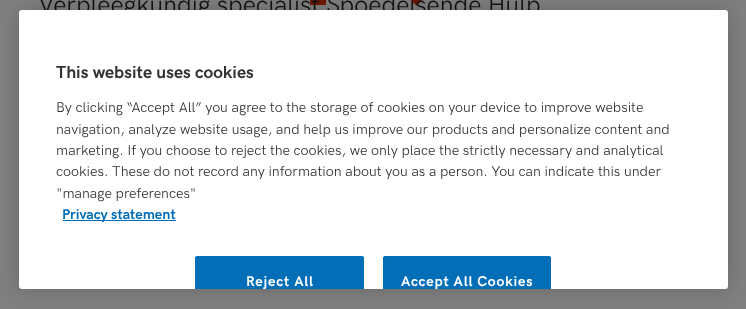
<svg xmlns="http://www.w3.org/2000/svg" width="746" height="309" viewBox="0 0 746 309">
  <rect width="100%" height="100%" fill="rgb(128,128,128)"/>
  <rect x="310" y="0" width="16" height="5" fill="rgb(113,25,0)"/>
  <image x="410" y="0" width="13" height="6" href="pic1.png"/>
  <text x="38" y="13" font-family="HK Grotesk" font-size="25" fill="rgb(18,18,18)">Verpleegkundig specialist Spoedeisende Hulp</text>
  <rect x="19" y="10" width="709" height="279" rx="3" fill="rgba(0,0,0,0.2)" filter="blur(11px)"/>
  <rect x="19" y="10" width="709" height="279" rx="3" fill="rgb(255,255,255)"/>
  <text x="56" y="78" font-family="HK Grotesk" font-size="17.5" font-weight="bold" fill="rgb(51,51,51)">This website uses cookies</text>
  <g font-family="HK Grotesk" font-size="14.25" fill="rgb(51,51,51)">
    <text>
      <tspan x="56" y="112">By clicking “Accept All” you agree to the storage of cookies on your device to improve website</tspan>
      <tspan x="56" y="134">navigation, analyze website usage, and help us improve our products and personalize content and</tspan>
      <tspan x="56" y="155">marketing. If you choose to reject the cookies, we only place the strictly necessary and analytical</tspan>
      <tspan x="56" y="176">cookies. These do not record any information about you as a person. You can indicate this under</tspan>
      <tspan x="56" y="198">"manage preferences"</tspan>
    </text>
  </g>
  <rect x="63" y="220" width="113" height="1" fill="rgb(1,110,183)"/>
  <text x="62" y="219" font-family="HK Grotesk" font-size="14.25" font-weight="bold" fill="rgb(1,110,183)">Privacy statement</text>
  <path d="M197.5 256H361.5C363 256 364 257 364 258.5V289H195V258.5C195 257 196 256 197.5 256Z" fill="rgb(1,110,183)"/>
  <path d="M198 256C196 256 195 257 195 258V289H196V258C196 258 197 257 198 257H362C362 257 363 258 363 258V289H364V258C364 257 363 256 362 256Z" fill="rgb(1,110,183)"/>
  <text x="246" y="286" font-family="HK Grotesk" font-size="14.25" font-weight="bold" letter-spacing="0.75" fill="rgb(255,255,255)">Reject All</text>
  <path d="M385.5 256H548.5C550 256 551 257 551 258.5V289H383V258.5C383 257 384 256 385.5 256Z" fill="rgb(1,110,183)"/>
  <path d="M386 256C384 256 383 257 383 258V289H384V258C384 258 385 257 386 257H548C549 257 550 258 550 258V289H551V258C551 257 550 256 548 256Z" fill="rgb(1,110,183)"/>
  <text x="401" y="286" font-family="HK Grotesk" font-size="14.25" font-weight="bold" letter-spacing="0.75" fill="rgb(255,255,255)">Accept All Cookies</text>
</svg>
